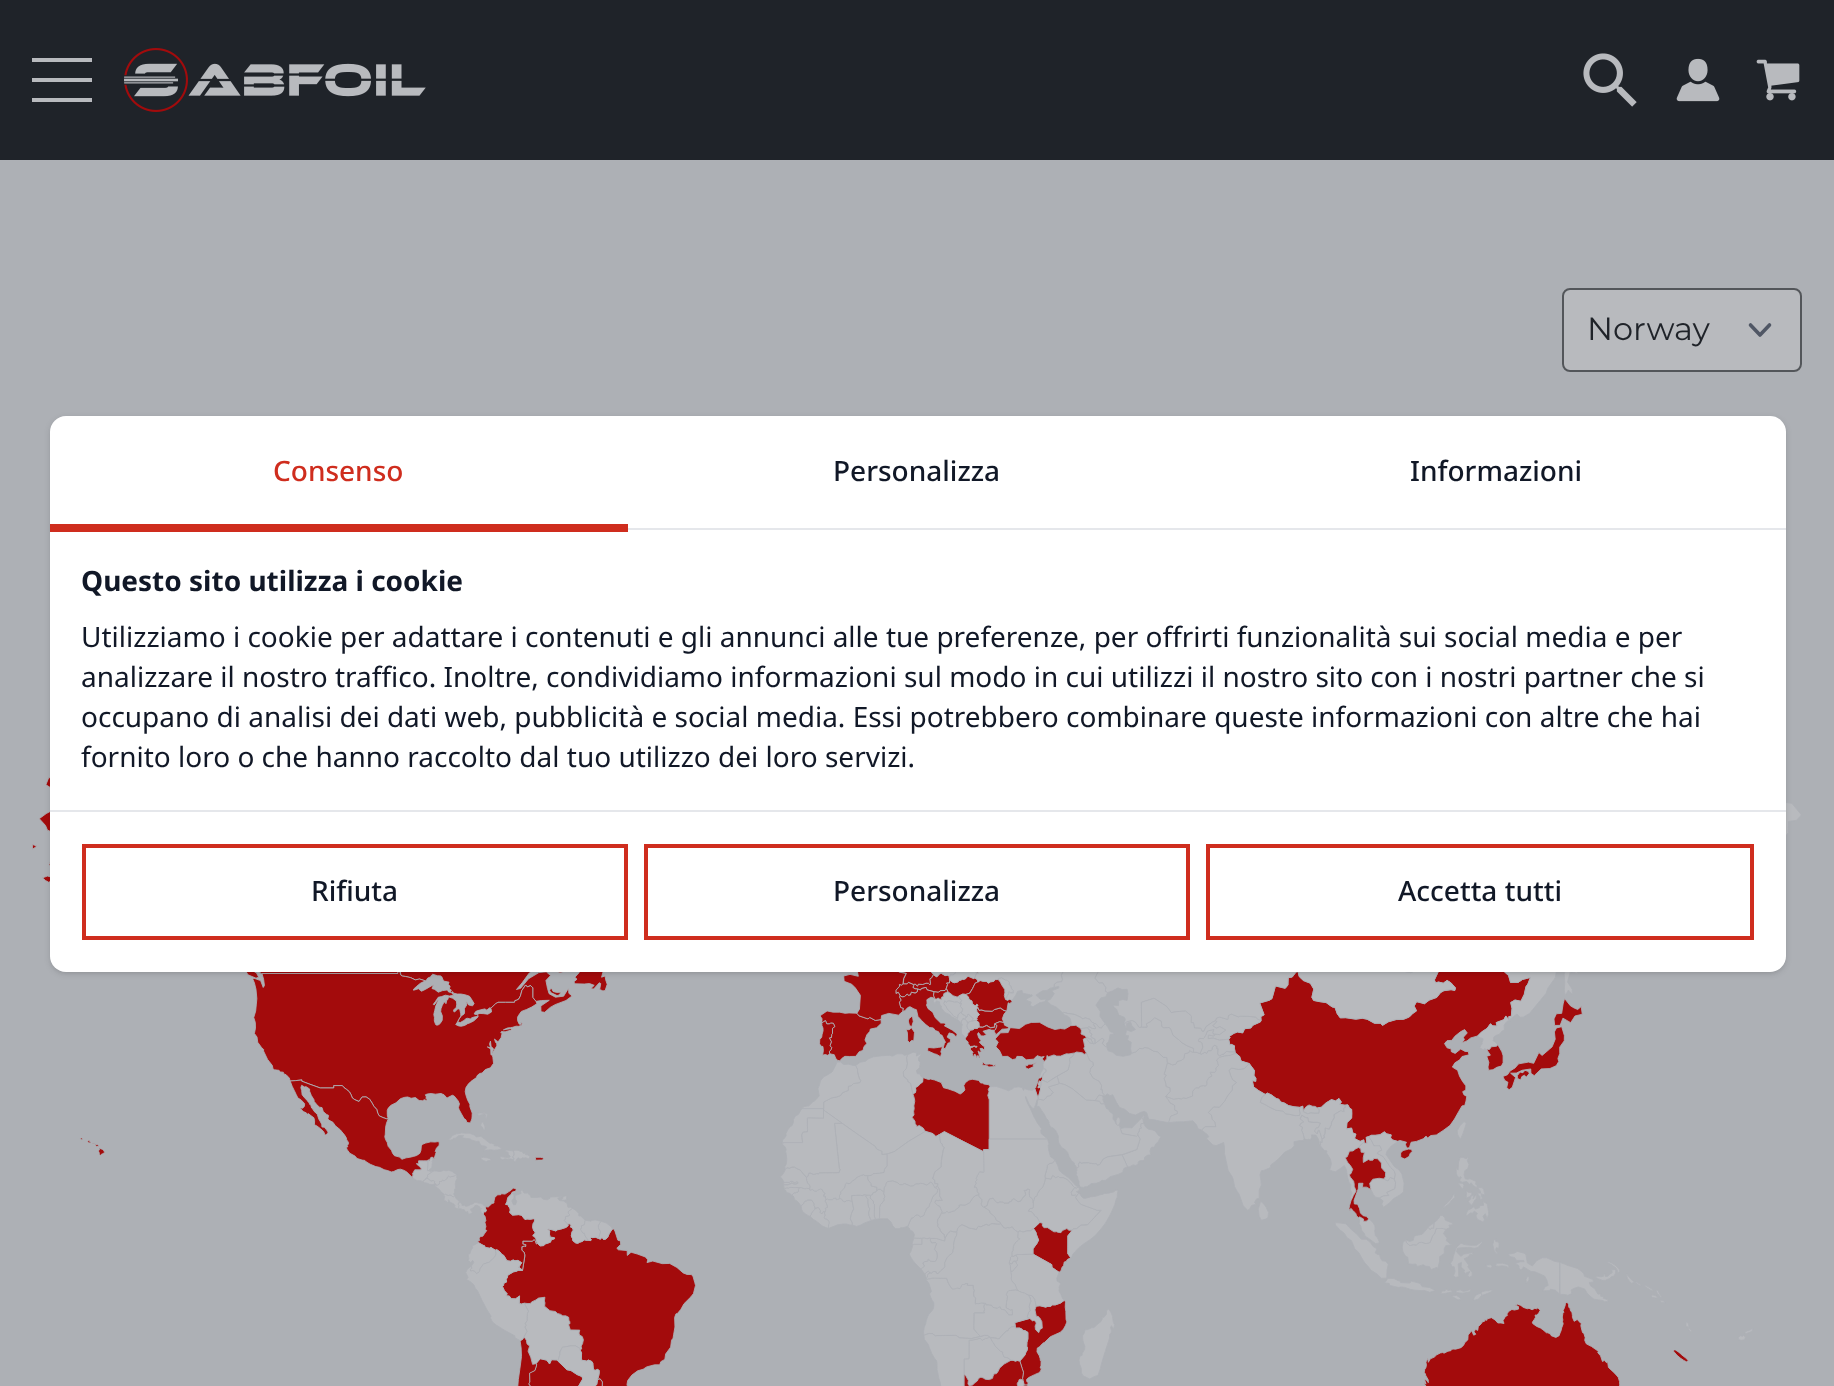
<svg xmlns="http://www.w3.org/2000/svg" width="1834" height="1386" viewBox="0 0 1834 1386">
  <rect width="100%" height="100%" fill="rgb(173,176,181)"/>
  <rect x="0" y="0" width="1834" height="160" fill="rgb(31,35,41)"/>
  <rect x="32" y="78" width="60" height="4" fill="rgb(184,186,190)"/>
  <rect x="32" y="58" width="60" height="4" fill="rgb(184,186,190)"/>
  <rect x="32" y="98" width="60" height="4" fill="rgb(184,186,190)"/>
  <image x="124" y="48" width="302" height="64" href="pic1.png"/>
  <image x="1583" y="53" width="54" height="54" href="pic2.png"/>
  <image x="1676" y="58" width="44" height="44" href="pic3.png"/>
  <image x="1756" y="59" width="44" height="42" href="pic4.png"/>
  <rect x="1562" y="288" width="240" height="84" rx="8" fill="rgb(184,186,190)"/>
  <path d="M1750.5 325L1760 335L1769.5 325" fill="none" stroke="rgb(80,87,101)" stroke-width="3.6" stroke-linecap="round" stroke-linejoin="round"/>
  <rect x="1563" y="289" width="238" height="82" rx="7" fill="none" stroke="rgb(83,86,90)" stroke-width="2"/>
  <text x="1587" y="340" font-family="Montserrat" font-size="32" fill="rgb(31,35,41)">Norway</text>
  <image x="32" y="777" width="1769" height="609" href="pic5.png"/>
  <rect x="52" y="420" width="1732" height="552" rx="14" fill="rgba(0,0,0,0.1)" filter="blur(2px)"/>
  <rect x="50" y="418" width="1736" height="556" rx="16" fill="rgba(0,0,0,0.1)" filter="blur(3px)"/>
  <rect x="50" y="416" width="1736" height="556" rx="16" fill="rgb(255,255,255)"/>
  <rect x="628" y="528" width="1158" height="2" fill="rgb(229,231,235)"/>
  <text x="273" y="481" font-family="Noto Sans" font-size="28" font-weight="500" fill="rgb(207,45,30)">Consenso</text>
  <g font-family="Noto Sans" font-size="28" font-weight="500" fill="rgb(17,24,39)">
    <text x="833" y="481">Personalizza</text>
    <text x="1410" y="481">Informazioni</text>
  </g>
  <rect x="50" y="524" width="578" height="8" fill="rgb(207,45,30)"/>
  <text x="81" y="591" font-family="Noto Sans" font-size="28" font-weight="bold" fill="rgb(17,24,39)">Questo sito utilizza i cookie</text>
  <g font-family="Noto Sans" font-size="28" fill="rgb(17,24,39)">
    <text>
      <tspan x="81" y="647">Utilizziamo i cookie per adattare i contenuti e gli annunci alle tue preferenze, per offrirti funzionalità sui social media e per</tspan>
      <tspan x="81" y="687">analizzare il nostro traffico. Inoltre, condividiamo informazioni sul modo in cui utilizzi il nostro sito con i nostri partner che si</tspan>
      <tspan x="81" y="727">occupano di analisi dei dati web, pubblicità e social media. Essi potrebbero combinare queste informazioni con altre che hai</tspan>
      <tspan x="81" y="767">fornito loro o che hanno raccolto dal tuo utilizzo dei loro servizi.</tspan>
    </text>
  </g>
  <rect x="50" y="810" width="1736" height="2" fill="rgb(229,231,235)"/>
  <rect x="84" y="846" width="542" height="92" fill="none" stroke="rgb(207,45,30)" stroke-width="4"/>
  <text x="311" y="901" font-family="Noto Sans" font-size="28" font-weight="500" fill="rgb(17,24,39)">Rifiuta</text>
  <rect x="646" y="846" width="542" height="92" fill="none" stroke="rgb(207,45,30)" stroke-width="4"/>
  <text x="833" y="901" font-family="Noto Sans" font-size="28" font-weight="500" fill="rgb(17,24,39)">Personalizza</text>
  <rect x="1208" y="846" width="544" height="92" fill="none" stroke="rgb(207,45,30)" stroke-width="4"/>
  <text x="1398" y="901" font-family="Noto Sans" font-size="28" font-weight="500" fill="rgb(17,24,39)">Accetta tutti</text>
</svg>
